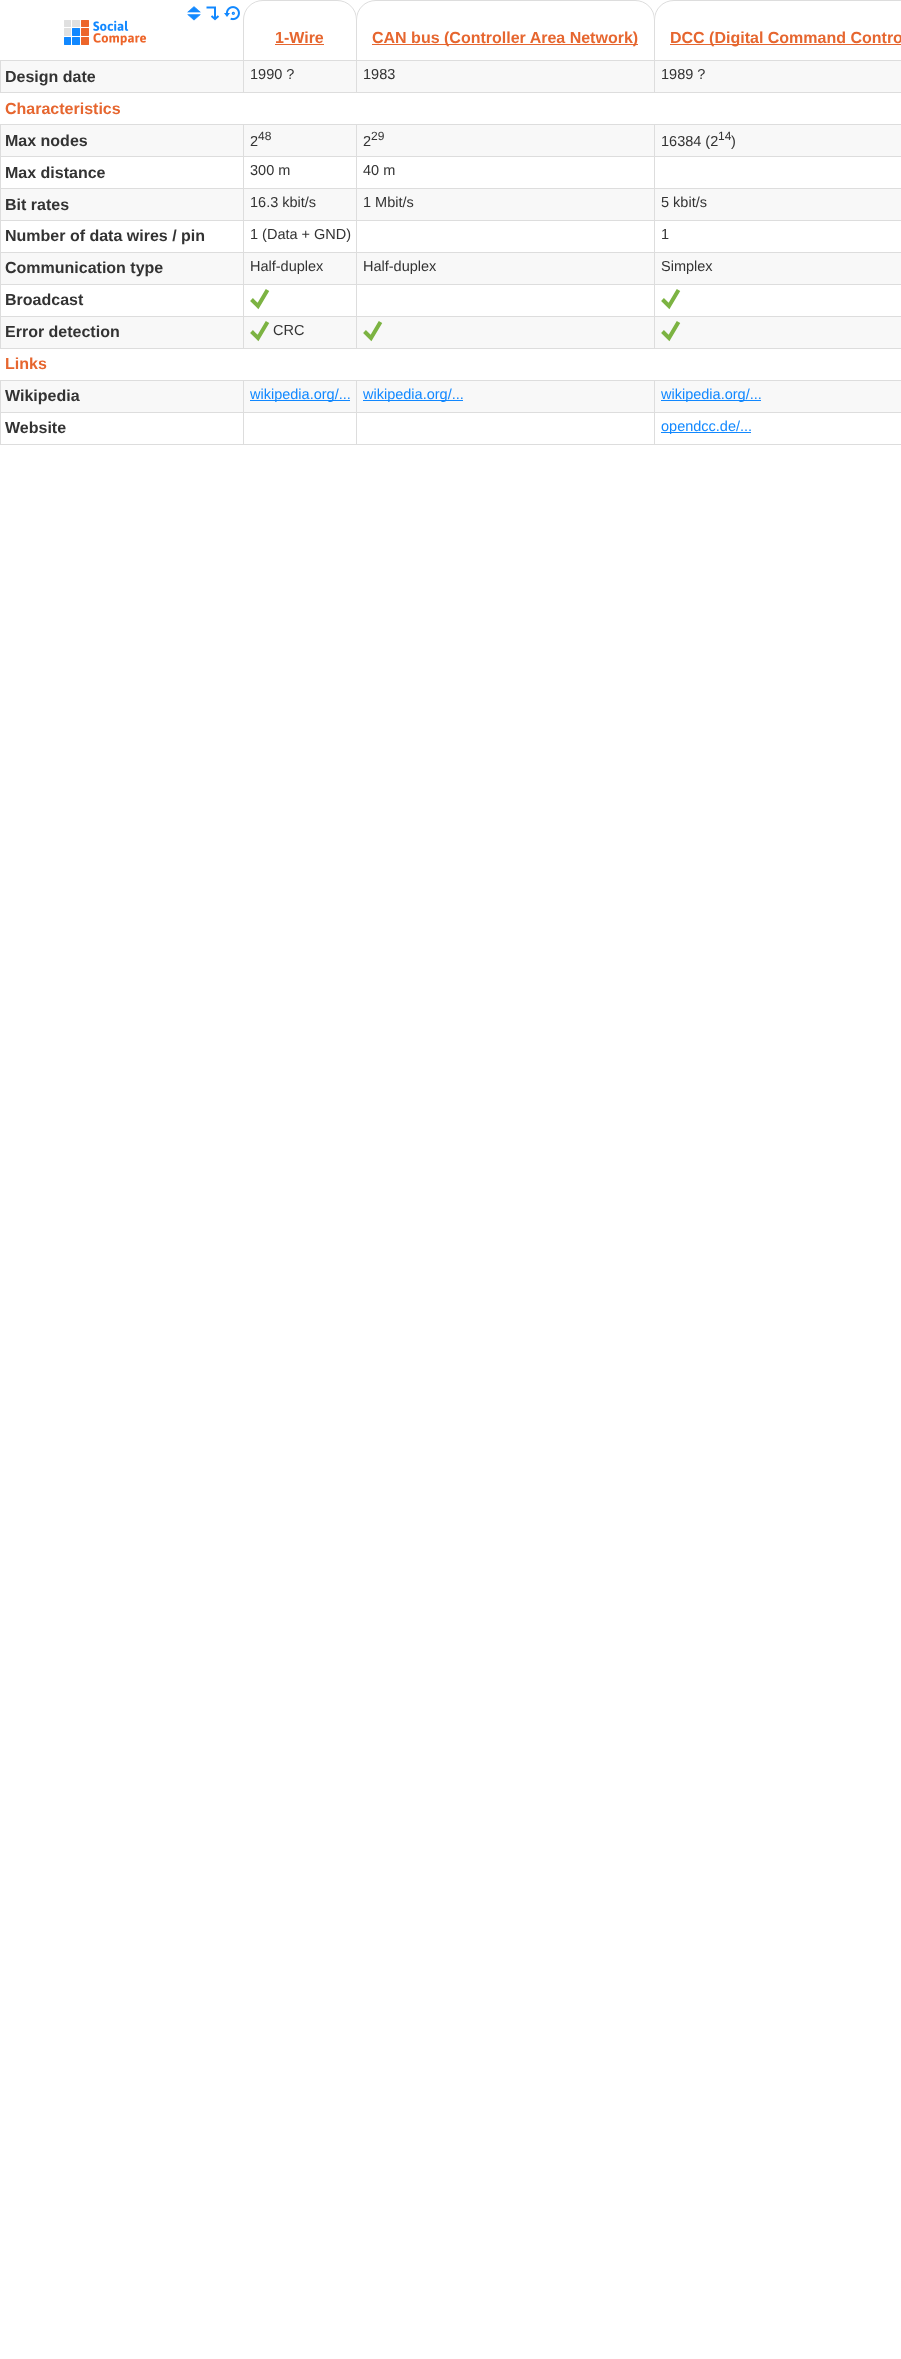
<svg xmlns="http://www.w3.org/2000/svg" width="901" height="2359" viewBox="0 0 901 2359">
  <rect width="100%" height="100%" fill="rgb(255,255,255)"/>
  <image x="187" y="6" width="14" height="15" href="pic1.png"/>
  <path d="M206.5 7.5H215V18.5M215.5 19.5L211.5 16M214.5 19.5L218.5 16" fill="none" stroke="rgb(17,136,255)" stroke-width="2"/>
  <image x="224" y="6" width="16" height="15" href="pic2.png"/>
  <image x="64" y="20" width="83" height="26" href="pic3.png"/>
  <rect x="275" y="44" width="49" height="1" fill="rgb(230,102,47)"/>
  <rect x="1" y="61" width="242" height="31" fill="rgb(248,248,248)"/>
  <rect x="244" y="61" width="112" height="31" fill="rgb(248,248,248)"/>
  <rect x="243.5" y="60.5" width="113" height="32" fill="none" stroke="rgb(221,221,221)"/>
  <rect x="0.5" y="60.5" width="243" height="32" fill="none" stroke="rgb(221,221,221)"/>
  <rect x="357" y="61" width="297" height="31" fill="rgb(248,248,248)"/>
  <rect x="356.5" y="60.5" width="298" height="32" fill="none" stroke="rgb(221,221,221)"/>
  <path d="M263 .5H337C348 .5 356.5 9 356.5 20V60.5H243.5V20C243.5 9 252 .5 263 .5Z" fill="none" stroke="rgb(221,221,221)"/>
  <text x="275" y="43" font-family="Liberation Sans" font-size="16" font-weight="bold" fill="rgb(230,102,47)">1-Wire</text>
  <rect x="356" y="14" width="1" height="46" fill="rgb(255,255,255)"/>
  <rect x="372" y="44" width="266" height="1" fill="rgb(230,102,47)"/>
  <rect x="655" y="61" width="246" height="31" fill="rgb(248,248,248)"/>
  <rect x="654.5" y="60.5" width="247" height="32" fill="none" stroke="rgb(221,221,221)"/>
  <path d="M376 .5H635C646 .5 654.5 9 654.5 20V60.5H356.5V20C356.5 9 365 .5 376 .5Z" fill="none" stroke="rgb(221,221,221)"/>
  <text x="372" y="43" font-family="Liberation Sans" font-size="16" font-weight="bold" fill="rgb(230,102,47)">CAN bus (Controller Area Network)</text>
  <rect x="654" y="14" width="1" height="46" fill="rgb(255,255,255)"/>
  <rect x="670" y="44" width="231" height="1" fill="rgb(230,102,47)"/>
  <path d="M674 .5H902C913 .5 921.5 9 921.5 20V60.5H654.5V20C654.5 9 663 .5 674 .5Z" fill="none" stroke="rgb(221,221,221)"/>
  <text x="670" y="43" font-family="Liberation Sans" font-size="16" font-weight="bold" fill="rgb(230,102,47)">DCC (Digital Command Contro</text>
  <text x="5" y="82" font-family="Liberation Sans" font-size="16" font-weight="bold" fill="rgb(51,51,51)">Design date</text>
  <g font-family="Liberation Sans" font-size="14.5" fill="rgb(51,51,51)">
    <text x="250" y="79">1990 ?</text>
    <text x="363" y="79">1983</text>
    <text x="661" y="79">1989 ?</text>
  </g>
  <text x="5" y="114" font-family="Liberation Sans" font-size="16" font-weight="bold" fill="rgb(230,102,47)">Characteristics</text>
  <rect x="1" y="125" width="242" height="31" fill="rgb(248,248,248)"/>
  <rect x="244" y="125" width="112" height="31" fill="rgb(248,248,248)"/>
  <rect x="243.5" y="124.5" width="113" height="32" fill="none" stroke="rgb(221,221,221)"/>
  <rect x="357" y="125" width="297" height="31" fill="rgb(248,248,248)"/>
  <rect x="356.5" y="124.5" width="298" height="32" fill="none" stroke="rgb(221,221,221)"/>
  <rect x="243.5" y="156.5" width="113" height="32" fill="none" stroke="rgb(221,221,221)"/>
  <rect x="0.5" y="124.5" width="243" height="32" fill="none" stroke="rgb(221,221,221)"/>
  <text x="5" y="146" font-family="Liberation Sans" font-size="16" font-weight="bold" fill="rgb(51,51,51)">Max nodes</text>
  <text x="250" y="146" font-family="Liberation Sans" font-size="14.5" fill="rgb(51,51,51)">2</text>
  <text x="258" y="140" font-family="Liberation Sans" font-size="12" fill="rgb(51,51,51)">48</text>
  <text x="363" y="146" font-family="Liberation Sans" font-size="14.5" fill="rgb(51,51,51)">2</text>
  <text x="371" y="140" font-family="Liberation Sans" font-size="12" fill="rgb(51,51,51)">29</text>
  <rect x="655" y="125" width="246" height="31" fill="rgb(248,248,248)"/>
  <rect x="654.5" y="124.5" width="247" height="32" fill="none" stroke="rgb(221,221,221)"/>
  <text x="661" y="146" font-family="Liberation Sans" font-size="14.5" fill="rgb(51,51,51)">16384 (2</text>
  <text x="718" y="140" font-family="Liberation Sans" font-size="12" fill="rgb(51,51,51)">14</text>
  <text x="731" y="146" font-family="Liberation Sans" font-size="14.5" fill="rgb(51,51,51)">)</text>
  <rect x="356.5" y="156.5" width="298" height="32" fill="none" stroke="rgb(221,221,221)"/>
  <rect x="244" y="189" width="112" height="31" fill="rgb(248,248,248)"/>
  <rect x="243.5" y="188.5" width="113" height="32" fill="none" stroke="rgb(221,221,221)"/>
  <rect x="0.5" y="156.5" width="243" height="32" fill="none" stroke="rgb(221,221,221)"/>
  <text x="5" y="178" font-family="Liberation Sans" font-size="16" font-weight="bold" fill="rgb(51,51,51)">Max distance</text>
  <g font-family="Liberation Sans" font-size="14.5" fill="rgb(51,51,51)">
    <text x="250" y="175">300 m</text>
    <text x="363" y="175">40 m</text>
  </g>
  <rect x="654.5" y="156.5" width="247" height="32" fill="none" stroke="rgb(221,221,221)"/>
  <rect x="1" y="189" width="242" height="31" fill="rgb(248,248,248)"/>
  <rect x="357" y="189" width="297" height="31" fill="rgb(248,248,248)"/>
  <rect x="356.5" y="188.5" width="298" height="32" fill="none" stroke="rgb(221,221,221)"/>
  <rect x="243.5" y="220.5" width="113" height="32" fill="none" stroke="rgb(221,221,221)"/>
  <rect x="0.5" y="188.5" width="243" height="32" fill="none" stroke="rgb(221,221,221)"/>
  <text x="5" y="210" font-family="Liberation Sans" font-size="16" font-weight="bold" fill="rgb(51,51,51)">Bit rates</text>
  <g font-family="Liberation Sans" font-size="14.5" fill="rgb(51,51,51)">
    <text x="250" y="207">16.3 kbit/s</text>
    <text x="363" y="207">1 Mbit/s</text>
  </g>
  <rect x="655" y="189" width="246" height="31" fill="rgb(248,248,248)"/>
  <rect x="654.5" y="188.5" width="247" height="32" fill="none" stroke="rgb(221,221,221)"/>
  <text x="661" y="207" font-family="Liberation Sans" font-size="14.5" fill="rgb(51,51,51)">5 kbit/s</text>
  <rect x="356.5" y="220.5" width="298" height="32" fill="none" stroke="rgb(221,221,221)"/>
  <rect x="244" y="253" width="112" height="31" fill="rgb(248,248,248)"/>
  <rect x="243.5" y="252.5" width="113" height="32" fill="none" stroke="rgb(221,221,221)"/>
  <rect x="0.5" y="220.5" width="243" height="32" fill="none" stroke="rgb(221,221,221)"/>
  <text x="5" y="241" font-family="Liberation Sans" font-size="16" font-weight="bold" fill="rgb(51,51,51)">Number of data wires / pin</text>
  <text x="250" y="239" font-family="Liberation Sans" font-size="14.5" fill="rgb(51,51,51)">1 (Data + GND)</text>
  <rect x="654.5" y="220.5" width="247" height="32" fill="none" stroke="rgb(221,221,221)"/>
  <text x="661" y="239" font-family="Liberation Sans" font-size="14.5" fill="rgb(51,51,51)">1</text>
  <rect x="1" y="253" width="242" height="31" fill="rgb(248,248,248)"/>
  <rect x="357" y="253" width="297" height="31" fill="rgb(248,248,248)"/>
  <rect x="356.5" y="252.5" width="298" height="32" fill="none" stroke="rgb(221,221,221)"/>
  <rect x="243.5" y="284.5" width="113" height="32" fill="none" stroke="rgb(221,221,221)"/>
  <rect x="0.5" y="252.5" width="243" height="32" fill="none" stroke="rgb(221,221,221)"/>
  <text x="5" y="273" font-family="Liberation Sans" font-size="16" font-weight="bold" fill="rgb(51,51,51)">Communication type</text>
  <g font-family="Liberation Sans" font-size="14.5" fill="rgb(51,51,51)">
    <text x="250" y="271">Half-duplex</text>
    <text x="363" y="271">Half-duplex</text>
  </g>
  <rect x="655" y="253" width="246" height="31" fill="rgb(248,248,248)"/>
  <rect x="654.5" y="252.5" width="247" height="32" fill="none" stroke="rgb(221,221,221)"/>
  <text x="661" y="271" font-family="Liberation Sans" font-size="14.5" fill="rgb(51,51,51)">Simplex</text>
  <rect x="356.5" y="284.5" width="298" height="32" fill="none" stroke="rgb(221,221,221)"/>
  <rect x="244" y="317" width="112" height="31" fill="rgb(248,248,248)"/>
  <rect x="243.5" y="316.5" width="113" height="32" fill="none" stroke="rgb(221,221,221)"/>
  <rect x="0.5" y="284.5" width="243" height="32" fill="none" stroke="rgb(221,221,221)"/>
  <text x="5" y="305" font-family="Liberation Sans" font-size="16" font-weight="bold" fill="rgb(51,51,51)">Broadcast</text>
  <path d="M251.5 299.5L258 306L267.5 290" fill="none" stroke="rgb(124,179,66)" stroke-width="4"/>
  <rect x="654.5" y="284.5" width="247" height="32" fill="none" stroke="rgb(221,221,221)"/>
  <path d="M662.5 299.5L669 306L678.5 290" fill="none" stroke="rgb(124,179,66)" stroke-width="4"/>
  <rect x="1" y="317" width="242" height="31" fill="rgb(248,248,248)"/>
  <rect x="0.5" y="316.5" width="243" height="32" fill="none" stroke="rgb(221,221,221)"/>
  <text x="5" y="337" font-family="Liberation Sans" font-size="16" font-weight="bold" fill="rgb(51,51,51)">Error detection</text>
  <path d="M251.5 331.5L258 338L267.5 322" fill="none" stroke="rgb(124,179,66)" stroke-width="4"/>
  <text x="273" y="335" font-family="Liberation Sans" font-size="14.5" fill="rgb(51,51,51)">CRC</text>
  <rect x="356.5" y="316.5" width="298" height="32" fill="rgb(248,248,248)" stroke="rgb(221,221,221)"/>
  <path d="M364.5 331.5L371 338L380.5 322" fill="none" stroke="rgb(124,179,66)" stroke-width="4"/>
  <rect x="654.5" y="316.5" width="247" height="32" fill="rgb(248,248,248)" stroke="rgb(221,221,221)"/>
  <path d="M662.5 331.5L669 338L678.5 322" fill="none" stroke="rgb(124,179,66)" stroke-width="4"/>
  <text x="5" y="369" font-family="Liberation Sans" font-size="16" font-weight="bold" fill="rgb(230,102,47)">Links</text>
  <rect x="1" y="381" width="242" height="31" fill="rgb(248,248,248)"/>
  <rect x="244" y="381" width="112" height="31" fill="rgb(248,248,248)"/>
  <rect x="250" y="400" width="100" height="1" fill="rgb(17,136,255)"/>
  <rect x="243.5" y="380.5" width="113" height="32" fill="none" stroke="rgb(221,221,221)"/>
  <rect x="357" y="381" width="297" height="31" fill="rgb(248,248,248)"/>
  <rect x="363" y="400" width="100" height="1" fill="rgb(17,136,255)"/>
  <rect x="356.5" y="380.5" width="298" height="32" fill="none" stroke="rgb(221,221,221)"/>
  <rect x="243.5" y="412.5" width="113" height="32" fill="none" stroke="rgb(221,221,221)"/>
  <rect x="0.5" y="380.5" width="243" height="32" fill="none" stroke="rgb(221,221,221)"/>
  <text x="5" y="401" font-family="Liberation Sans" font-size="16" font-weight="bold" fill="rgb(51,51,51)">Wikipedia</text>
  <g font-family="Liberation Sans" font-size="14.5" fill="rgb(17,136,255)">
    <text x="250" y="399">wikipedia.org/...</text>
    <text x="363" y="399">wikipedia.org/...</text>
  </g>
  <rect x="655" y="381" width="246" height="31" fill="rgb(248,248,248)"/>
  <rect x="661" y="400" width="100" height="1" fill="rgb(17,136,255)"/>
  <rect x="654.5" y="380.5" width="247" height="32" fill="none" stroke="rgb(221,221,221)"/>
  <text x="661" y="399" font-family="Liberation Sans" font-size="14.5" fill="rgb(17,136,255)">wikipedia.org/...</text>
  <rect x="0.5" y="412.5" width="243" height="32" fill="none" stroke="rgb(221,221,221)"/>
  <text x="5" y="433" font-family="Liberation Sans" font-size="16" font-weight="bold" fill="rgb(51,51,51)">Website</text>
  <rect x="356.5" y="412.5" width="298" height="32" fill="none" stroke="rgb(221,221,221)"/>
  <rect x="661" y="432" width="90" height="1" fill="rgb(17,136,255)"/>
  <rect x="654.5" y="412.5" width="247" height="32" fill="none" stroke="rgb(221,221,221)"/>
  <text x="661" y="431" font-family="Liberation Sans" font-size="14.5" fill="rgb(17,136,255)">opendcc.de/...</text>
</svg>
